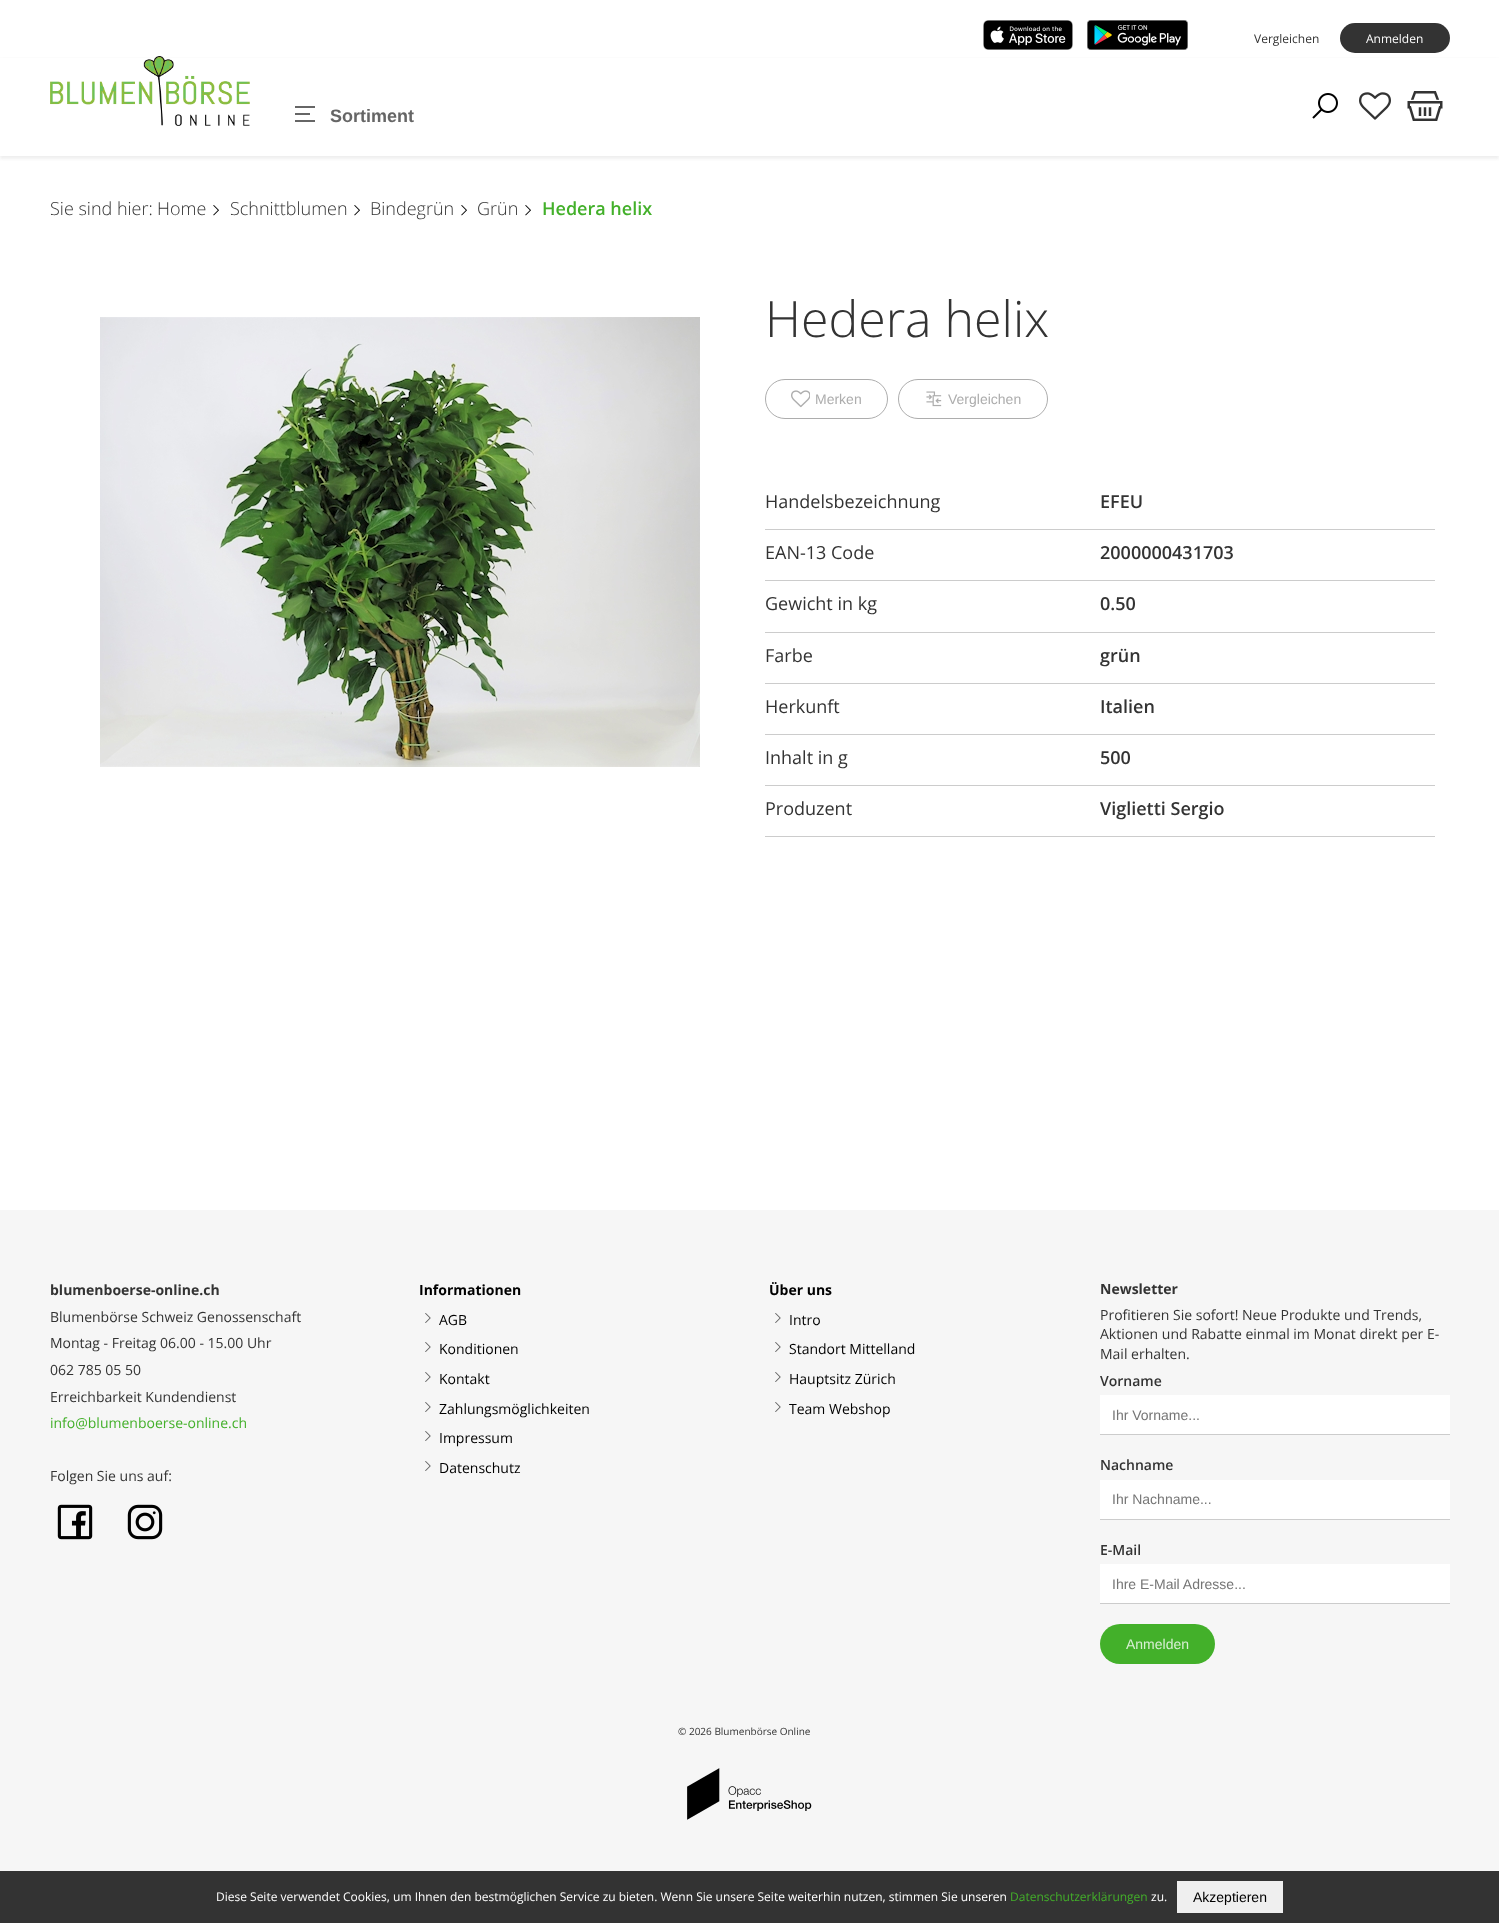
<svg xmlns="http://www.w3.org/2000/svg" width="1499" height="1923" viewBox="0 0 1499 1923">
  <rect width="100%" height="100%" fill="rgb(255,255,255)"/>
  <image x="983" y="20" width="90" height="30" href="pic1.png"/>
  <image x="1087" y="20" width="101" height="30" href="pic2.png"/>
  <text x="1254" y="43" font-family="Open Sans" font-size="12" fill="rgb(51,51,51)">Vergleichen</text>
  <rect x="1340" y="23" width="110" height="30" rx="15" fill="rgb(51,51,51)"/>
  <text x="1366" y="43" font-family="Open Sans" font-size="12" fill="rgb(255,255,255)">Anmelden</text>
  <rect x="0" y="59" width="1499" height="100" fill="rgb(239,239,239)" filter="blur(1.5px)"/>
  <rect x="0" y="58" width="1499" height="98" fill="rgb(255,255,255)"/>
  <image x="50" y="56" width="200" height="70" href="pic3.png"/>
  <rect x="295" y="113" width="15" height="2" fill="rgb(102,102,102)"/>
  <rect x="295" y="106" width="20" height="2" fill="rgb(102,102,102)"/>
  <rect x="295" y="120" width="20" height="2" fill="rgb(102,102,102)"/>
  <text x="330" y="122" font-family="Liberation Sans" font-size="18" font-weight="bold" fill="rgb(102,102,102)">Sortiment</text>
  <image x="1312" y="93" width="26" height="26" href="pic4.png"/>
  <image x="1359" y="92" width="32" height="28" href="pic5.png"/>
  <image x="1407" y="91" width="36" height="30" href="pic6.png"/>
  <rect x="0" y="1871" width="1499" height="52" fill="rgb(51,51,51)"/>
  <text x="216" y="1901" font-family="Open Sans" font-size="12" fill="rgb(255,255,255)">Diese Seite verwendet Cookies, um Ihnen den bestmöglichen Service zu bieten. Wenn Sie unsere Seite weiterhin nutzen, stimmen Sie unseren</text>
  <text x="1010" y="1901" font-family="Open Sans" font-size="12" fill="rgb(67,176,42)">Datenschutzerklärungen</text>
  <text x="1151" y="1901" font-family="Open Sans" font-size="12" fill="rgb(255,255,255)">zu.</text>
  <rect x="1177" y="1881" width="106" height="32" fill="rgb(239,239,239)"/>
  <text x="1193" y="1902" font-family="Liberation Sans" font-size="14" fill="rgb(0,0,0)">Akzeptieren</text>
  <g font-family="Open Sans" font-size="18" font-weight="300" fill="rgb(51,51,51)">
    <text x="50" y="215">Sie sind hier:</text>
    <text x="157" y="215">Home</text>
  </g>
  <image x="213" y="205" width="6" height="11" href="pic7.png"/>
  <text x="230" y="215" font-family="Open Sans" font-size="18" font-weight="300" fill="rgb(51,51,51)">Schnittblumen</text>
  <image x="354" y="205" width="6" height="11" href="pic7.png"/>
  <text x="370" y="215" font-family="Open Sans" font-size="18" font-weight="300" fill="rgb(51,51,51)">Bindegrün</text>
  <image x="461" y="205" width="6" height="11" href="pic7.png"/>
  <text x="477" y="215" font-family="Open Sans" font-size="18" font-weight="300" fill="rgb(51,51,51)">Grün</text>
  <image x="525" y="205" width="6" height="11" href="pic7.png"/>
  <text x="542" y="215" font-family="Open Sans" font-size="18" font-weight="600" fill="rgb(67,176,42)">Hedera helix</text>
  <image x="100" y="317" width="600" height="450" href="pic8.png"/>
  <text x="765" y="337" font-family="Open Sans" font-size="50" font-weight="300" fill="rgb(51,51,51)">Hedera helix</text>
  <rect x="765.5" y="379.5" width="122" height="39" rx="19.5" fill="none" stroke="rgb(173,173,173)"/>
  <image x="791" y="390" width="19" height="18" href="pic9.png"/>
  <text x="815" y="404" font-family="Liberation Sans" font-size="14" fill="rgb(173,173,173)">Merken</text>
  <rect x="898.5" y="379.5" width="149" height="39" rx="19.5" fill="none" stroke="rgb(173,173,173)"/>
  <image x="926" y="391" width="16" height="16" href="pic10.png"/>
  <text x="948" y="404" font-family="Liberation Sans" font-size="14" fill="rgb(173,173,173)">Vergleichen</text>
  <rect x="765" y="529" width="670" height="1" fill="rgb(204,204,204)"/>
  <text x="765" y="508" font-family="Open Sans" font-size="18" fill="rgb(51,51,51)">Handelsbezeichnung</text>
  <text x="1100" y="508" font-family="Open Sans" font-size="18" font-weight="600" fill="rgb(51,51,51)">EFEU</text>
  <rect x="765" y="580" width="670" height="1" fill="rgb(204,204,204)"/>
  <text x="765" y="559" font-family="Open Sans" font-size="18" fill="rgb(51,51,51)">EAN-13 Code</text>
  <text x="1100" y="559" font-family="Open Sans" font-size="18" font-weight="600" fill="rgb(51,51,51)">2000000431703</text>
  <rect x="765" y="632" width="670" height="1" fill="rgb(204,204,204)"/>
  <text x="765" y="610" font-family="Open Sans" font-size="18" fill="rgb(51,51,51)">Gewicht in kg</text>
  <text x="1100" y="610" font-family="Open Sans" font-size="18" font-weight="600" fill="rgb(51,51,51)">0.50</text>
  <rect x="765" y="683" width="670" height="1" fill="rgb(204,204,204)"/>
  <text x="765" y="662" font-family="Open Sans" font-size="18" fill="rgb(51,51,51)">Farbe</text>
  <text x="1100" y="662" font-family="Open Sans" font-size="18" font-weight="600" fill="rgb(51,51,51)">grün</text>
  <rect x="765" y="734" width="670" height="1" fill="rgb(204,204,204)"/>
  <text x="765" y="713" font-family="Open Sans" font-size="18" fill="rgb(51,51,51)">Herkunft</text>
  <text x="1100" y="713" font-family="Open Sans" font-size="18" font-weight="600" fill="rgb(51,51,51)">Italien</text>
  <rect x="765" y="785" width="670" height="1" fill="rgb(204,204,204)"/>
  <text x="765" y="764" font-family="Open Sans" font-size="18" fill="rgb(51,51,51)">Inhalt in g</text>
  <text x="1100" y="764" font-family="Open Sans" font-size="18" font-weight="600" fill="rgb(51,51,51)">500</text>
  <rect x="765" y="836" width="670" height="1" fill="rgb(204,204,204)"/>
  <text x="765" y="815" font-family="Open Sans" font-size="18" fill="rgb(51,51,51)">Produzent</text>
  <text x="1100" y="815" font-family="Open Sans" font-size="18" font-weight="600" fill="rgb(51,51,51)">Viglietti Sergio</text>
  <rect x="0" y="1210" width="1499" height="661" fill="rgb(246,246,246)"/>
  <text x="50" y="1295" font-family="Open Sans" font-size="14" font-weight="bold" fill="rgb(51,51,51)">blumenboerse-online.ch</text>
  <g font-family="Open Sans" font-size="14" fill="rgb(51,51,51)">
    <text>
      <tspan x="50" y="1322">Blumenbörse Schweiz Genossenschaft</tspan>
      <tspan x="50" y="1348">Montag - Freitag 06.00 - 15.00 Uhr</tspan>
      <tspan x="50" y="1375">062 785 05 50</tspan>
      <tspan x="50" y="1402">Erreichbarkeit Kundendienst</tspan>
    </text>
  </g>
  <text x="50" y="1428" font-family="Open Sans" font-size="14" fill="rgb(67,176,42)">info@blumenboerse-online.ch</text>
  <text x="50" y="1481" font-family="Open Sans" font-size="14" fill="rgb(51,51,51)">Folgen Sie uns auf:</text>
  <image x="57" y="1504" width="36" height="36" href="pic11.png"/>
  <image x="127" y="1504" width="36" height="36" href="pic12.png"/>
  <text x="419" y="1295" font-family="Open Sans" font-size="14" font-weight="bold" fill="rgb(0,0,0)">Informationen</text>
  <image x="425" y="1313" width="6" height="10" href="pic13.png"/>
  <text x="439" y="1325" font-family="Open Sans" font-size="14" fill="rgb(0,0,0)">AGB</text>
  <image x="425" y="1342" width="6" height="10" href="pic13.png"/>
  <text x="439" y="1354" font-family="Open Sans" font-size="14" fill="rgb(0,0,0)">Konditionen</text>
  <image x="425" y="1372" width="6" height="10" href="pic13.png"/>
  <text x="439" y="1384" font-family="Open Sans" font-size="14" fill="rgb(0,0,0)">Kontakt</text>
  <image x="425" y="1402" width="6" height="10" href="pic13.png"/>
  <text x="439" y="1414" font-family="Open Sans" font-size="14" fill="rgb(0,0,0)">Zahlungsmöglichkeiten</text>
  <image x="425" y="1431" width="6" height="10" href="pic13.png"/>
  <text x="439" y="1443" font-family="Open Sans" font-size="14" fill="rgb(0,0,0)">Impressum</text>
  <image x="425" y="1461" width="6" height="10" href="pic13.png"/>
  <text x="439" y="1473" font-family="Open Sans" font-size="14" fill="rgb(0,0,0)">Datenschutz</text>
  <text x="769" y="1295" font-family="Open Sans" font-size="14" font-weight="bold" fill="rgb(0,0,0)">Über uns</text>
  <image x="775" y="1313" width="6" height="10" href="pic13.png"/>
  <text x="789" y="1325" font-family="Open Sans" font-size="14" fill="rgb(0,0,0)">Intro</text>
  <image x="775" y="1342" width="6" height="10" href="pic13.png"/>
  <text x="789" y="1354" font-family="Open Sans" font-size="14" fill="rgb(0,0,0)">Standort Mittelland</text>
  <image x="775" y="1372" width="6" height="10" href="pic13.png"/>
  <text x="789" y="1384" font-family="Open Sans" font-size="14" fill="rgb(0,0,0)">Hauptsitz Zürich</text>
  <image x="775" y="1402" width="6" height="10" href="pic13.png"/>
  <text x="789" y="1414" font-family="Open Sans" font-size="14" fill="rgb(0,0,0)">Team Webshop</text>
  <text x="1100" y="1294" font-family="Open Sans" font-size="14" font-weight="bold" fill="rgb(51,51,51)">Newsletter</text>
  <g font-family="Open Sans" font-size="14" fill="rgb(51,51,51)">
    <text>
      <tspan x="1100" y="1320">Profitieren Sie sofort! Neue Produkte und Trends,</tspan>
      <tspan x="1100" y="1339">Aktionen und Rabatte einmal im Monat direkt per E-</tspan>
      <tspan x="1100" y="1359">Mail erhalten.</tspan>
    </text>
  </g>
  <text x="1100" y="1386" font-family="Open Sans" font-size="14" font-weight="600" fill="rgb(51,51,51)">Vorname</text>
  <rect x="1100" y="1395" width="350" height="39" fill="rgb(255,255,255)"/>
  <rect x="1100" y="1434" width="350" height="1" fill="rgb(204,204,204)"/>
  <text x="1112" y="1420" font-family="Liberation Sans" font-size="14" fill="rgb(117,117,117)">Ihr Vorname...</text>
  <text x="1100" y="1470" font-family="Open Sans" font-size="14" font-weight="600" fill="rgb(51,51,51)">Nachname</text>
  <rect x="1100" y="1480" width="350" height="39" fill="rgb(255,255,255)"/>
  <rect x="1100" y="1519" width="350" height="1" fill="rgb(204,204,204)"/>
  <text x="1112" y="1504" font-family="Liberation Sans" font-size="14" fill="rgb(117,117,117)">Ihr Nachname...</text>
  <text x="1100" y="1555" font-family="Open Sans" font-size="14" font-weight="600" fill="rgb(51,51,51)">E-Mail</text>
  <rect x="1100" y="1564" width="350" height="39" fill="rgb(255,255,255)"/>
  <rect x="1100" y="1603" width="350" height="1" fill="rgb(204,204,204)"/>
  <text x="1112" y="1589" font-family="Liberation Sans" font-size="14" fill="rgb(117,117,117)">Ihre E-Mail Adresse...</text>
  <rect x="1100" y="1624" width="115" height="40" rx="20" fill="rgb(67,176,42)"/>
  <text x="1126" y="1649" font-family="Liberation Sans" font-size="14" fill="rgb(217,239,212)">Anmelden</text>
  <text x="678" y="1735" font-family="Open Sans" font-size="10" fill="rgb(51,51,51)">© 2026 Blumenbörse Online</text>
  <image x="687" y="1768" width="125" height="52" href="pic14.png"/>
</svg>
